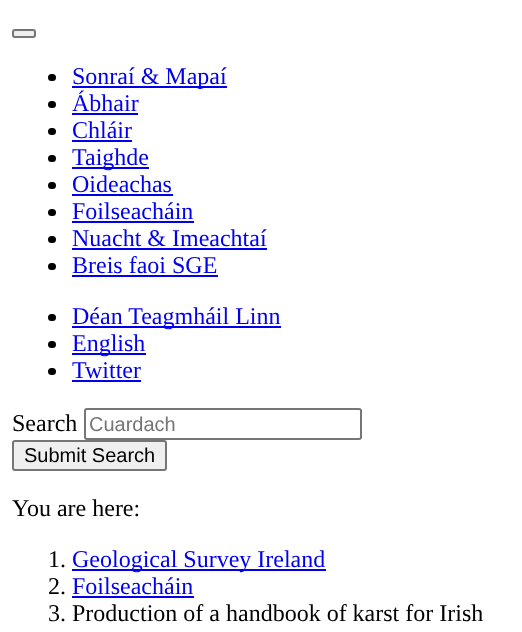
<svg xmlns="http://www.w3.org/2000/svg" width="522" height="632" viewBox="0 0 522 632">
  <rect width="100%" height="100%" fill="rgb(255,255,255)"/>
  <rect x="13" y="30" width="22" height="7" rx="2" fill="rgb(239,239,239)" stroke="rgb(118,118,118)" stroke-width="2"/>
  <rect x="48" y="74" width="8" height="7" rx="3.5" fill="rgb(0,0,0)"/>
  <rect x="72" y="86" width="155" height="2" fill="rgb(0,0,238)"/>
  <text x="72" y="84" font-family="Liberation Serif" font-size="24" fill="rgb(0,0,238)">Sonraí &amp; Mapaí</text>
  <rect x="48" y="101" width="8" height="7" rx="3.5" fill="rgb(0,0,0)"/>
  <text x="72" y="111" font-family="Liberation Serif" font-size="24" fill="rgb(0,0,238)">Ábhair</text>
  <rect x="72" y="113" width="66" height="2" fill="rgb(0,0,238)"/>
  <rect x="48" y="128" width="8" height="7" rx="3.5" fill="rgb(0,0,0)"/>
  <text x="72" y="138" font-family="Liberation Serif" font-size="24" fill="rgb(0,0,238)">Chláir</text>
  <rect x="72" y="140" width="60" height="2" fill="rgb(0,0,238)"/>
  <rect x="48" y="155" width="8" height="7" rx="3.5" fill="rgb(0,0,0)"/>
  <rect x="72" y="167" width="77" height="2" fill="rgb(0,0,238)"/>
  <text x="72" y="165" font-family="Liberation Serif" font-size="24" fill="rgb(0,0,238)">Taighde</text>
  <rect x="48" y="182" width="8" height="7" rx="3.5" fill="rgb(0,0,0)"/>
  <text x="72" y="192" font-family="Liberation Serif" font-size="24" fill="rgb(0,0,238)">Oideachas</text>
  <rect x="72" y="194" width="101" height="2" fill="rgb(0,0,238)"/>
  <rect x="48" y="209" width="8" height="7" rx="3.5" fill="rgb(0,0,0)"/>
  <text x="72" y="219" font-family="Liberation Serif" font-size="24" fill="rgb(0,0,238)">Foilseacháin</text>
  <rect x="72" y="221" width="122" height="2" fill="rgb(0,0,238)"/>
  <rect x="48" y="236" width="8" height="7" rx="3.5" fill="rgb(0,0,0)"/>
  <text x="72" y="246" font-family="Liberation Serif" font-size="24" fill="rgb(0,0,238)">Nuacht &amp; Imeachtaí</text>
  <rect x="72" y="248" width="195" height="2" fill="rgb(0,0,238)"/>
  <rect x="48" y="263" width="8" height="7" rx="3.5" fill="rgb(0,0,0)"/>
  <text x="72" y="273" font-family="Liberation Serif" font-size="24" fill="rgb(0,0,238)">Breis faoi SGE</text>
  <rect x="72" y="275" width="146" height="2" fill="rgb(0,0,238)"/>
  <rect x="48" y="314" width="8" height="7" rx="3.5" fill="rgb(0,0,0)"/>
  <rect x="72" y="326" width="209" height="2" fill="rgb(0,0,238)"/>
  <text x="72" y="324" font-family="Liberation Serif" font-size="24" fill="rgb(0,0,238)">Déan Teagmháil Linn</text>
  <rect x="48" y="341" width="8" height="7" rx="3.5" fill="rgb(0,0,0)"/>
  <rect x="72" y="353" width="74" height="2" fill="rgb(0,0,238)"/>
  <text x="72" y="351" font-family="Liberation Serif" font-size="24" fill="rgb(0,0,238)">English</text>
  <rect x="48" y="368" width="8" height="7" rx="3.5" fill="rgb(0,0,0)"/>
  <text x="72" y="378" font-family="Liberation Serif" font-size="24" fill="rgb(0,0,238)">Twitter</text>
  <rect x="72" y="380" width="69" height="2" fill="rgb(0,0,238)"/>
  <text x="12" y="431" font-family="Liberation Serif" font-size="24" fill="rgb(0,0,0)">Search</text>
  <rect x="85" y="409" width="276" height="30" rx="2" fill="none" stroke="rgb(118,118,118)" stroke-width="2"/>
  <text x="89" y="431" font-family="Liberation Sans" font-size="20" fill="rgb(117,117,117)">Cuardach</text>
  <rect x="13" y="441" width="153" height="29" rx="2" fill="rgb(239,239,239)" stroke="rgb(118,118,118)" stroke-width="2"/>
  <text x="24" y="462" font-family="Liberation Sans" font-size="20" fill="rgb(0,0,0)">Submit Search</text>
  <g font-family="Liberation Serif" font-size="24" fill="rgb(0,0,0)">
    <text x="12" y="516">You are here:</text>
    <text x="48" y="567">1.</text>
  </g>
  <rect x="72" y="569" width="254" height="2" fill="rgb(0,0,238)"/>
  <text x="72" y="567" font-family="Liberation Serif" font-size="24" fill="rgb(0,0,238)">Geological Survey Ireland</text>
  <text x="48" y="594" font-family="Liberation Serif" font-size="24" fill="rgb(0,0,0)">2.</text>
  <text x="72" y="594" font-family="Liberation Serif" font-size="24" fill="rgb(0,0,238)">Foilseacháin</text>
  <rect x="72" y="596" width="122" height="2" fill="rgb(0,0,238)"/>
  <text x="48" y="621" font-family="Liberation Serif" font-size="24" fill="rgb(0,0,0)">3. Production of a handbook of karst for Irish</text>
</svg>
